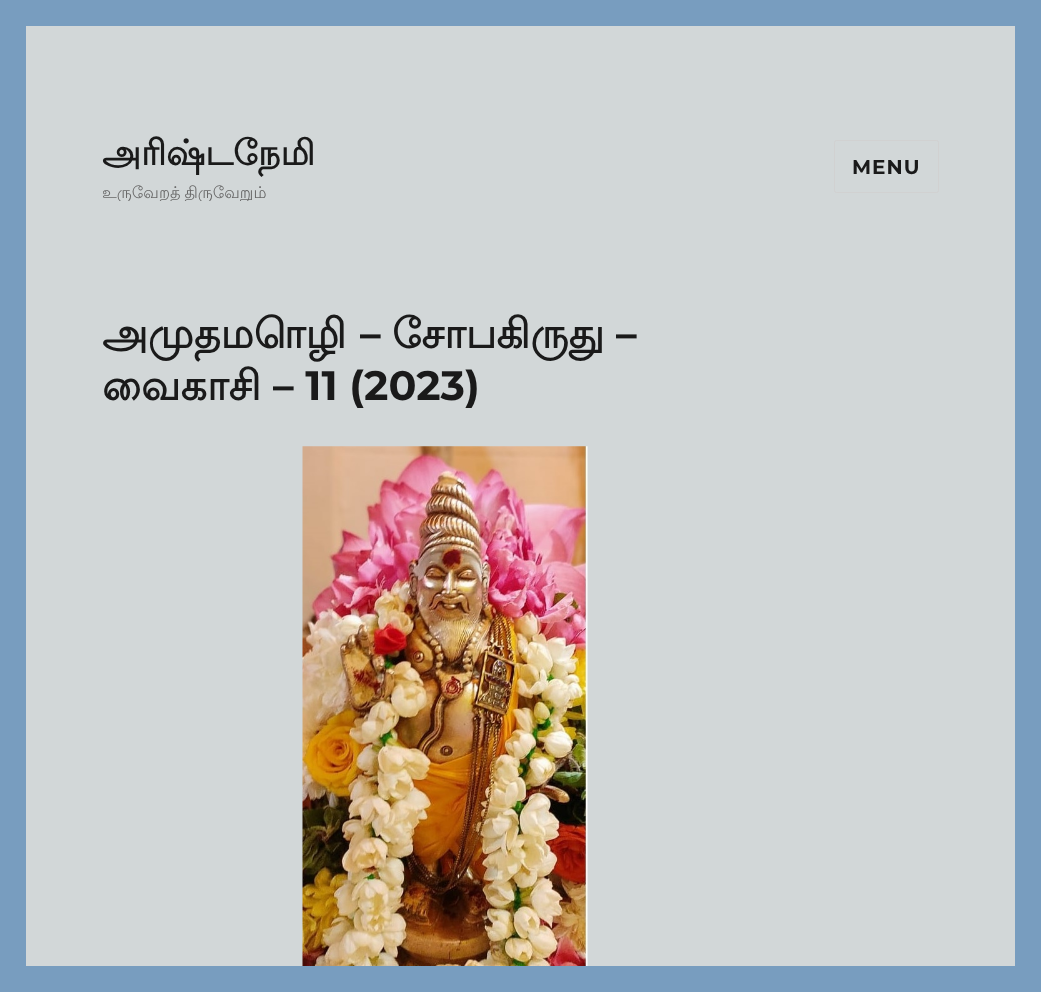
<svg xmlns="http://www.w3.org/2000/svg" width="1041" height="992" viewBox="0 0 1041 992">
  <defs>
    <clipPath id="clip1"><rect x="103" y="131" width="212" height="70"/></clipPath>
  </defs>
  <rect width="100%" height="100%" fill="rgb(120,157,191)"/>
  <rect x="26" y="26" width="989" height="940" fill="rgb(210,215,216)"/>
  <text x="102" y="165" font-family="Lohit Tamil" font-size="35" font-weight="bold" fill="rgb(26,26,26)">அரிஷ்டநேமி</text>
  <g clip-path="url(#clip1)">
    <text x="102" y="198" word-spacing="-1" font-family="Lohit Tamil" font-size="16.25" fill="rgb(104,104,104)">உருவேறத் திருவேறும்</text>
  </g>
  <rect x="834.5" y="140.5" width="104" height="52" rx="2" fill="none" stroke="rgb(209,209,209)"/>
  <text x="852" y="174" font-family="Montserrat" font-size="20" font-weight="100" letter-spacing="1" fill="rgb(26,26,26)">MENU</text>
  <text x="102" y="348" font-family="Lohit Tamil" font-size="41.25" font-weight="bold" fill="rgb(26,26,26)">அமுதமொழி</text>
  <text x="360" y="348" font-family="Montserrat" font-size="41.25" font-weight="100" fill="rgb(26,26,26)">–</text>
  <text x="392" y="348" font-family="Lohit Tamil" font-size="41.25" font-weight="bold" fill="rgb(26,26,26)">சோபகிருது</text>
  <text x="616" y="348" font-family="Montserrat" font-size="41.25" font-weight="100" fill="rgb(26,26,26)">–</text>
  <text x="102" y="400" font-family="Lohit Tamil" font-size="41.25" font-weight="bold" fill="rgb(26,26,26)">வைகாசி</text>
  <text x="273" y="400" font-family="Montserrat" font-size="41.25" font-weight="100" fill="rgb(26,26,26)">– 11 (2023)</text>
  <image x="302" y="446" width="286" height="520" href="pic1.png"/>
</svg>
